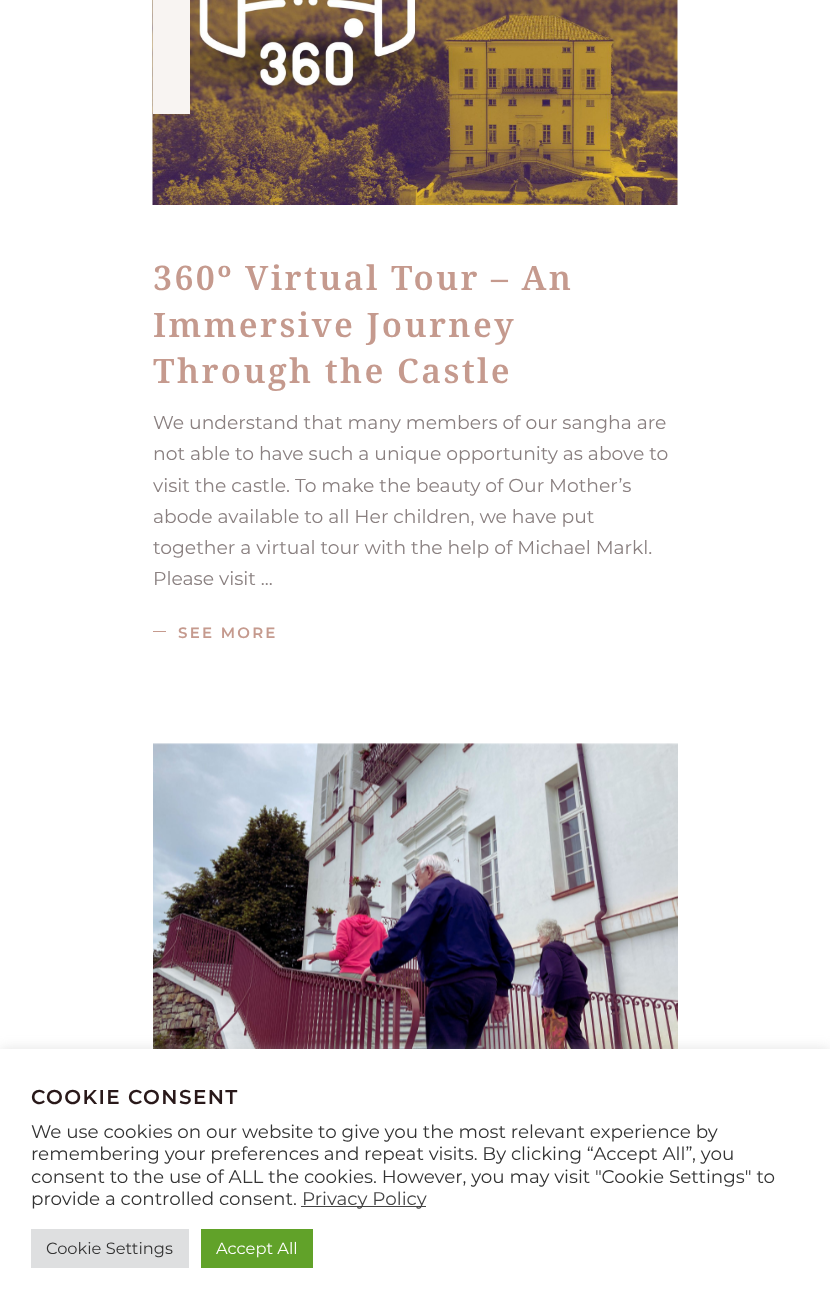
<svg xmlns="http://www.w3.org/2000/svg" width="830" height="1304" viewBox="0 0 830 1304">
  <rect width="100%" height="100%" fill="rgb(255,255,255)"/>
  <image x="152" y="0" width="526" height="205" href="pic1.png"/>
  <rect x="153" y="0" width="37" height="114" fill="rgb(248,244,242)"/>
  <g font-family="Noto Serif" font-size="33.75" font-weight="600" letter-spacing="2.4" fill="rgb(197,154,142)">
    <text>
      <tspan x="153" y="290">360º Virtual Tour – An</tspan>
      <tspan x="153" y="337">Immersive Journey</tspan>
      <tspan x="153" y="383">Through the Castle</tspan>
    </text>
  </g>
  <g font-family="Montserrat" font-size="18.75" fill="rgb(138,128,128)">
    <text>
      <tspan x="153" y="429">We understand that many members of our sangha are</tspan>
      <tspan x="153" y="460">not able to have such a unique opportunity as above to</tspan>
      <tspan x="153" y="492">visit the castle. To make the beauty of Our Mother’s</tspan>
      <tspan x="153" y="523">abode available to all Her children, we have put</tspan>
      <tspan x="153" y="554">together a virtual tour with the help of Michael Markl.</tspan>
      <tspan x="153" y="585">Please visit ...</tspan>
    </text>
  </g>
  <rect x="153" y="631" width="13" height="1" fill="rgb(197,154,142)"/>
  <text x="178" y="638" font-family="Montserrat" font-size="15" font-weight="600" letter-spacing="2.25" fill="rgb(197,154,142)">SEE MORE</text>
  <image x="153" y="743" width="525" height="306" href="pic2.png"/>
  <rect x="0" y="1048" width="830" height="256" fill="rgba(172,171,171,0.3)" filter="blur(6px)"/>
  <rect x="0" y="1049" width="830" height="255" fill="rgb(255,255,255)"/>
  <text x="31" y="1104" font-family="Montserrat" font-size="20" font-weight="600" letter-spacing="1.4" fill="rgb(41,25,26)">COOKIE CONSENT</text>
  <g font-family="Montserrat" font-size="18.35" fill="rgb(51,51,51)">
    <text>
      <tspan x="31" y="1138">We use cookies on our website to give you the most relevant experience by</tspan>
      <tspan x="31" y="1160">remembering your preferences and repeat visits. By clicking “Accept All”, you</tspan>
      <tspan x="31" y="1183">consent to the use of ALL the cookies. However, you may visit "Cookie Settings" to</tspan>
      <tspan x="31" y="1205">provide a controlled consent.</tspan>
    </text>
  </g>
  <rect x="301" y="1206" width="125" height="1" fill="rgb(68,68,68)"/>
  <text x="302" y="1205" font-family="Montserrat" font-size="18.35" fill="rgb(68,68,68)">Privacy Policy</text>
  <rect x="31" y="1229" width="158" height="39" fill="rgb(222,223,224)"/>
  <text x="46" y="1254" font-family="Montserrat" font-size="16.25" fill="rgb(51,51,51)">Cookie Settings</text>
  <rect x="201" y="1229" width="112" height="39" fill="rgb(97,162,41)"/>
  <text x="216" y="1254" font-family="Montserrat" font-size="16.25" fill="rgb(255,255,255)">Accept All</text>
</svg>
